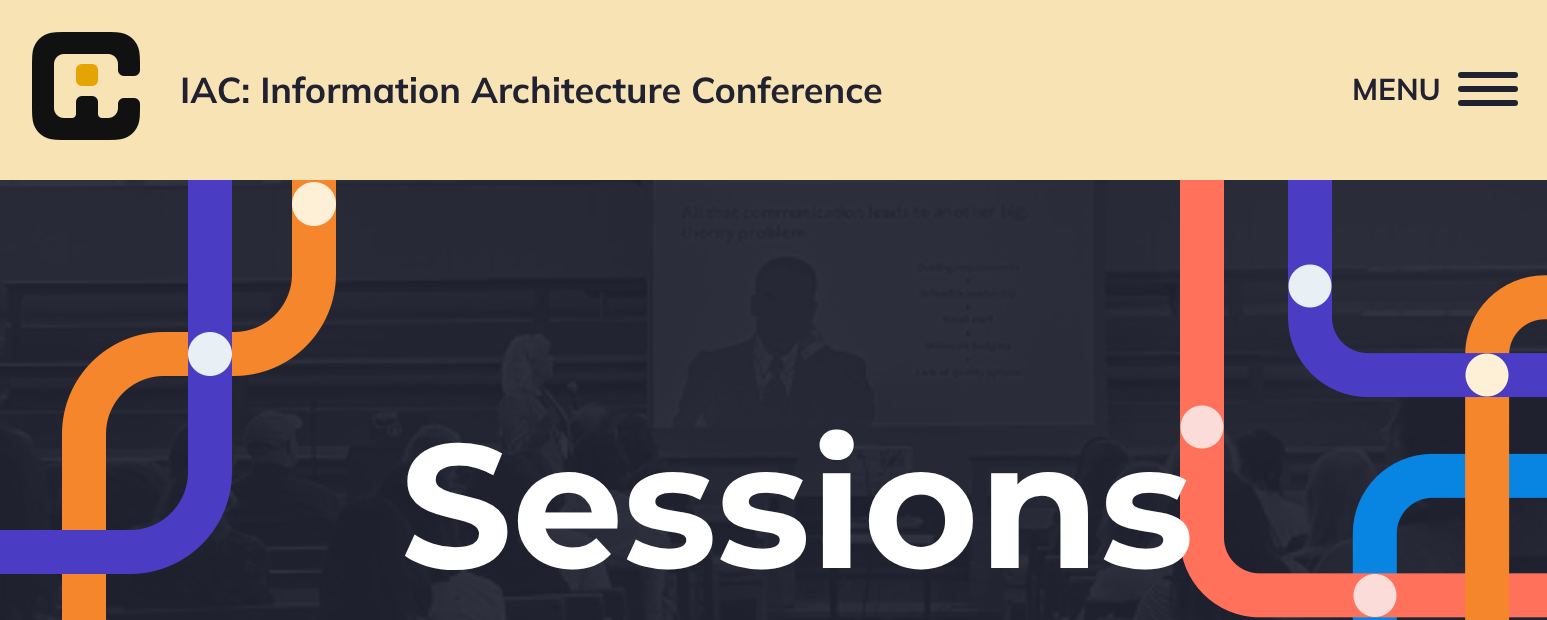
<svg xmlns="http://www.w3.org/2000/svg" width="1547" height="620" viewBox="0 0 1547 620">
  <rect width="100%" height="100%" fill="rgb(255,255,255)"/>
  <rect x="0" y="0" width="1547" height="180" fill="rgb(248,227,180)"/>
  <image x="32" y="32" width="108" height="108" href="pic1.png"/>
  <text x="180" y="103" font-family="Mulish" font-size="36" font-weight="bold" fill="rgb(33,34,49)">IAC: Information Architecture Conference</text>
  <text x="1352" y="100" font-family="Mulish" font-size="30" font-weight="bold" fill="rgb(33,34,49)">MENU</text>
  <rect x="1458" y="72" width="60" height="6" rx="3" fill="rgb(33,34,49)"/>
  <rect x="1458" y="86" width="60" height="6" rx="3" fill="rgb(33,34,49)"/>
  <rect x="1458" y="100" width="60" height="6" rx="3" fill="rgb(33,34,49)"/>
  <image x="0" y="180" width="1547" height="440" href="pic2.png"/>
  <image x="0" y="180" width="336" height="440" href="pic3.png"/>
  <image x="1180" y="180" width="367" height="440" href="pic4.png"/>
  <text x="400" y="568" font-family="Montserrat" font-size="176" font-weight="bold" fill="rgb(255,255,255)">Sessions</text>
</svg>
